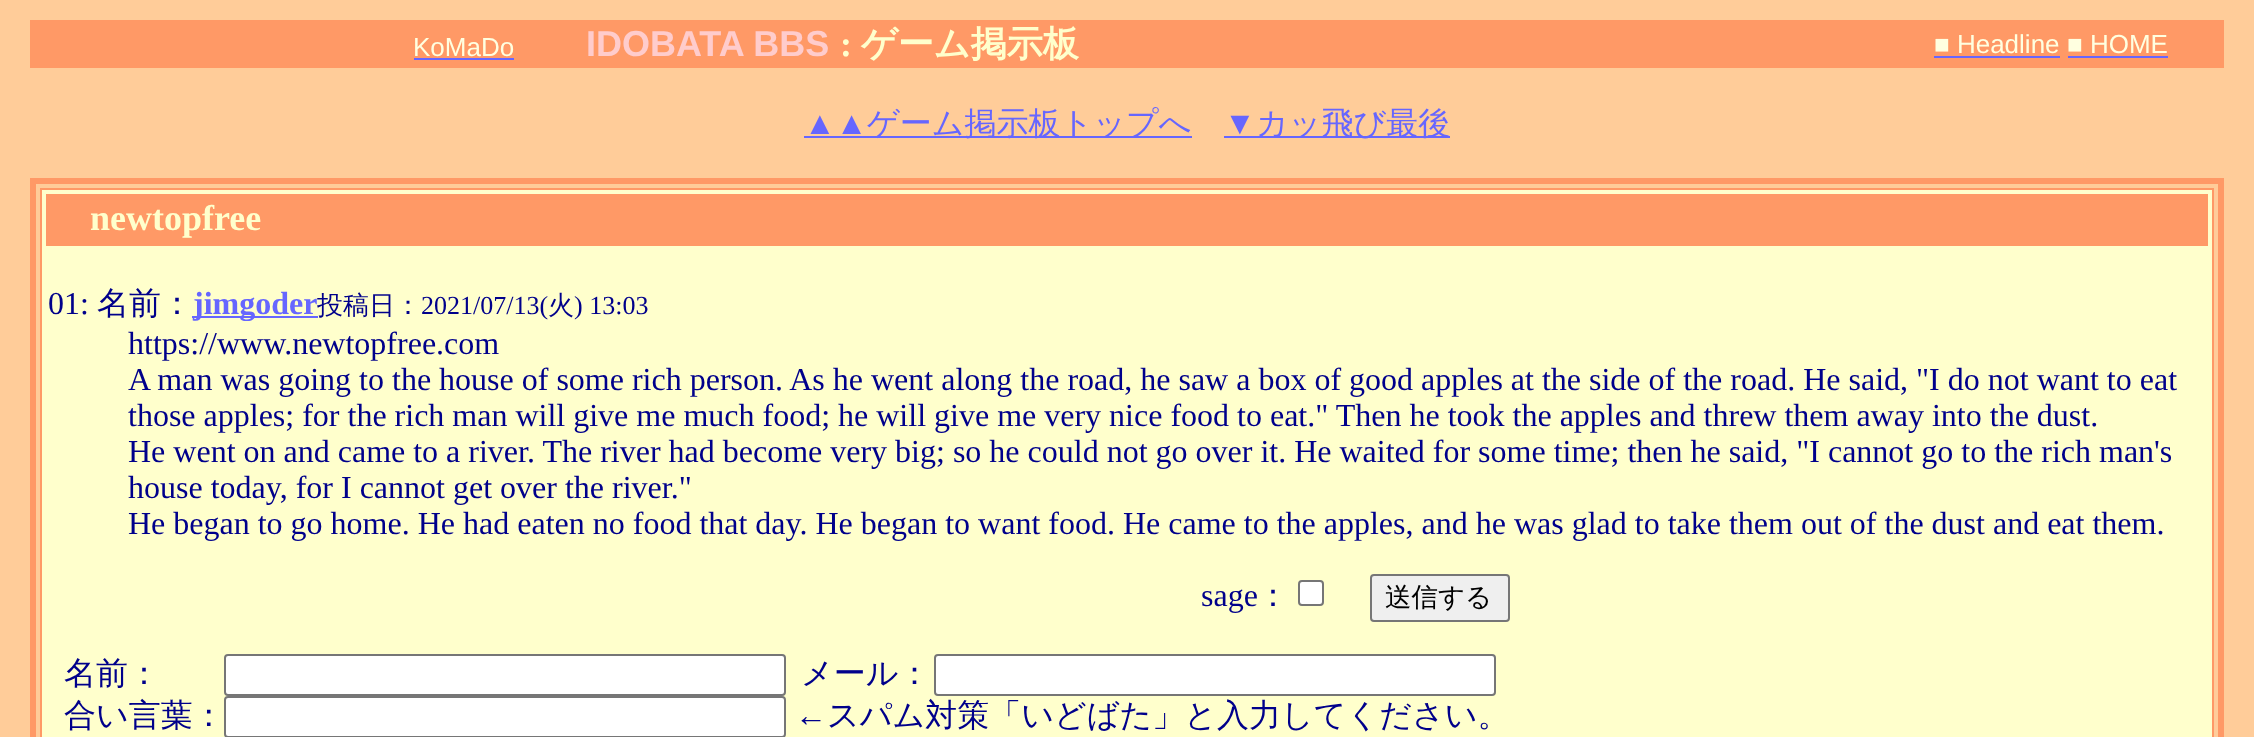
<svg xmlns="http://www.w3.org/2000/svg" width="2254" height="737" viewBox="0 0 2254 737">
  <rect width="100%" height="100%" fill="rgb(255,204,153)"/>
  <rect x="30" y="20" width="2194" height="48" fill="rgb(255,153,102)"/>
  <text x="413" y="56" font-family="Liberation Sans" font-size="26" fill="rgb(255,255,224)">KoMaDo</text>
  <rect x="414" y="58" width="100" height="2" fill="rgb(102,102,255)"/>
  <text x="586" y="56" font-family="Liberation Sans" font-size="36" font-weight="bold" fill="rgb(255,204,204)">IDOBATA BBS</text>
  <text x="840" y="56" font-family="Liberation Serif" font-size="36" font-weight="bold" fill="rgb(255,255,204)">:</text>
  <text x="861" y="56" font-family="WenQuanYi Zen Hei" font-size="36" font-weight="bold" fill="rgb(255,255,204)">ゲーム掲示板</text>
  <text x="1934" y="53" font-family="Liberation Sans" font-size="26" fill="rgb(255,255,224)">■ Headline</text>
  <rect x="1934" y="56" width="126" height="2" fill="rgb(102,102,255)"/>
  <text x="2067" y="53" font-family="Liberation Sans" font-size="26" fill="rgb(255,255,224)">■ HOME</text>
  <rect x="2068" y="56" width="100" height="2" fill="rgb(102,102,255)"/>
  <text x="804" y="134" font-family="Liberation Serif" font-size="32" fill="rgb(102,102,255)">▲▲</text>
  <rect x="804" y="136" width="388" height="2" fill="rgb(102,102,255)"/>
  <text x="867" y="134" font-family="WenQuanYi Zen Hei" font-size="32" font-weight="500" fill="rgb(102,102,255)">ゲーム掲示板トップへ</text>
  <text x="1224" y="134" font-family="Liberation Serif" font-size="32" fill="rgb(102,102,255)">▼</text>
  <rect x="1224" y="136" width="226" height="2" fill="rgb(102,102,255)"/>
  <text x="1256" y="134" font-family="WenQuanYi Zen Hei" font-size="32" font-weight="500" fill="rgb(102,102,255)">カッ飛び最後</text>
  <rect x="33" y="181" width="2188" height="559" fill="none" stroke="rgb(255,153,102)" stroke-width="6"/>
  <rect x="41" y="189" width="2172" height="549" fill="rgb(255,255,204)" stroke="rgb(255,153,102)" stroke-width="2"/>
  <rect x="46" y="194" width="2162" height="52" fill="rgb(255,153,102)"/>
  <text x="90" y="230" font-family="Liberation Serif" font-size="36" font-weight="bold" fill="rgb(255,255,204)">newtopfree</text>
  <text x="48" y="314" font-family="Liberation Serif" font-size="32" fill="rgb(0,0,139)">01:</text>
  <text x="97" y="314" font-family="WenQuanYi Zen Hei" font-size="32" font-weight="500" fill="rgb(0,0,139)">名前：</text>
  <rect x="192" y="316" width="126" height="2" fill="rgb(102,102,255)"/>
  <text x="193" y="314" font-family="Liberation Serif" font-size="32" font-weight="bold" fill="rgb(102,102,255)">jimgoder</text>
  <text x="317" y="314" font-family="WenQuanYi Zen Hei" font-size="26" font-weight="500" fill="rgb(0,0,139)">投稿日：</text>
  <text x="421" y="314" font-family="Liberation Serif" font-size="26" fill="rgb(0,0,139)">2021/07/13(</text>
  <text x="548" y="314" font-family="WenQuanYi Zen Hei" font-size="26" font-weight="500" fill="rgb(0,0,139)">火</text>
  <text x="574" y="314" font-family="Liberation Serif" font-size="26" fill="rgb(0,0,139)">) 13:03</text>
  <g font-family="Liberation Serif" font-size="32" fill="rgb(0,0,139)">
    <text>
      <tspan x="128" y="354">https://www.newtopfree.com</tspan>
      <tspan x="128" y="390">A man was going to the house of some rich person. As he went along the road, he saw a box of good apples at the side of the road. He said, "I do not want to eat</tspan>
      <tspan x="128" y="426">those apples; for the rich man will give me much food; he will give me very nice food to eat." Then he took the apples and threw them away into the dust.</tspan>
      <tspan x="128" y="462">He went on and came to a river. The river had become very big; so he could not go over it. He waited for some time; then he said, "I cannot go to the rich man's</tspan>
      <tspan x="128" y="498">house today, for I cannot get over the river."</tspan>
      <tspan x="128" y="534">He began to go home. He had eaten no food that day. He began to want food. He came to the apples, and he was glad to take them out of the dust and eat them.</tspan>
    </text>
    <text x="1201" y="606">sage</text>
  </g>
  <text x="1257" y="606" font-family="WenQuanYi Zen Hei" font-size="32" font-weight="500" fill="rgb(0,0,139)">：</text>
  <rect x="1299" y="581" width="24" height="24" rx="3" fill="rgb(255,255,255)" stroke="rgb(118,118,118)" stroke-width="2"/>
  <rect x="1371" y="575" width="138" height="46" rx="3" fill="rgb(239,239,239)" stroke="rgb(118,118,118)" stroke-width="2"/>
  <text x="1385" y="606" font-family="WenQuanYi Zen Hei" font-size="26.5" font-weight="500" fill="rgb(0,0,0)">送信する</text>
  <text x="64" y="684" font-family="WenQuanYi Zen Hei" font-size="32" font-weight="500" fill="rgb(0,0,139)">名前：</text>
  <rect x="225" y="655" width="560" height="40" rx="3" fill="rgb(255,255,255)" stroke="rgb(118,118,118)" stroke-width="2"/>
  <text x="801" y="684" font-family="WenQuanYi Zen Hei" font-size="32" font-weight="500" fill="rgb(0,0,139)">メール：</text>
  <rect x="935" y="655" width="560" height="40" rx="3" fill="rgb(255,255,255)" stroke="rgb(118,118,118)" stroke-width="2"/>
  <text x="64" y="726" font-family="WenQuanYi Zen Hei" font-size="32" font-weight="500" fill="rgb(0,0,139)">合い言葉：</text>
  <rect x="225" y="697" width="560" height="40" rx="3" fill="rgb(255,255,255)" stroke="rgb(118,118,118)" stroke-width="2"/>
  <text x="795" y="726" font-family="Liberation Serif" font-size="32" fill="rgb(0,0,139)">←</text>
  <text x="827" y="726" font-family="WenQuanYi Zen Hei" font-size="32" font-weight="500" fill="rgb(0,0,139)">スパム対策「いどばた」と入力してください。</text>
</svg>
